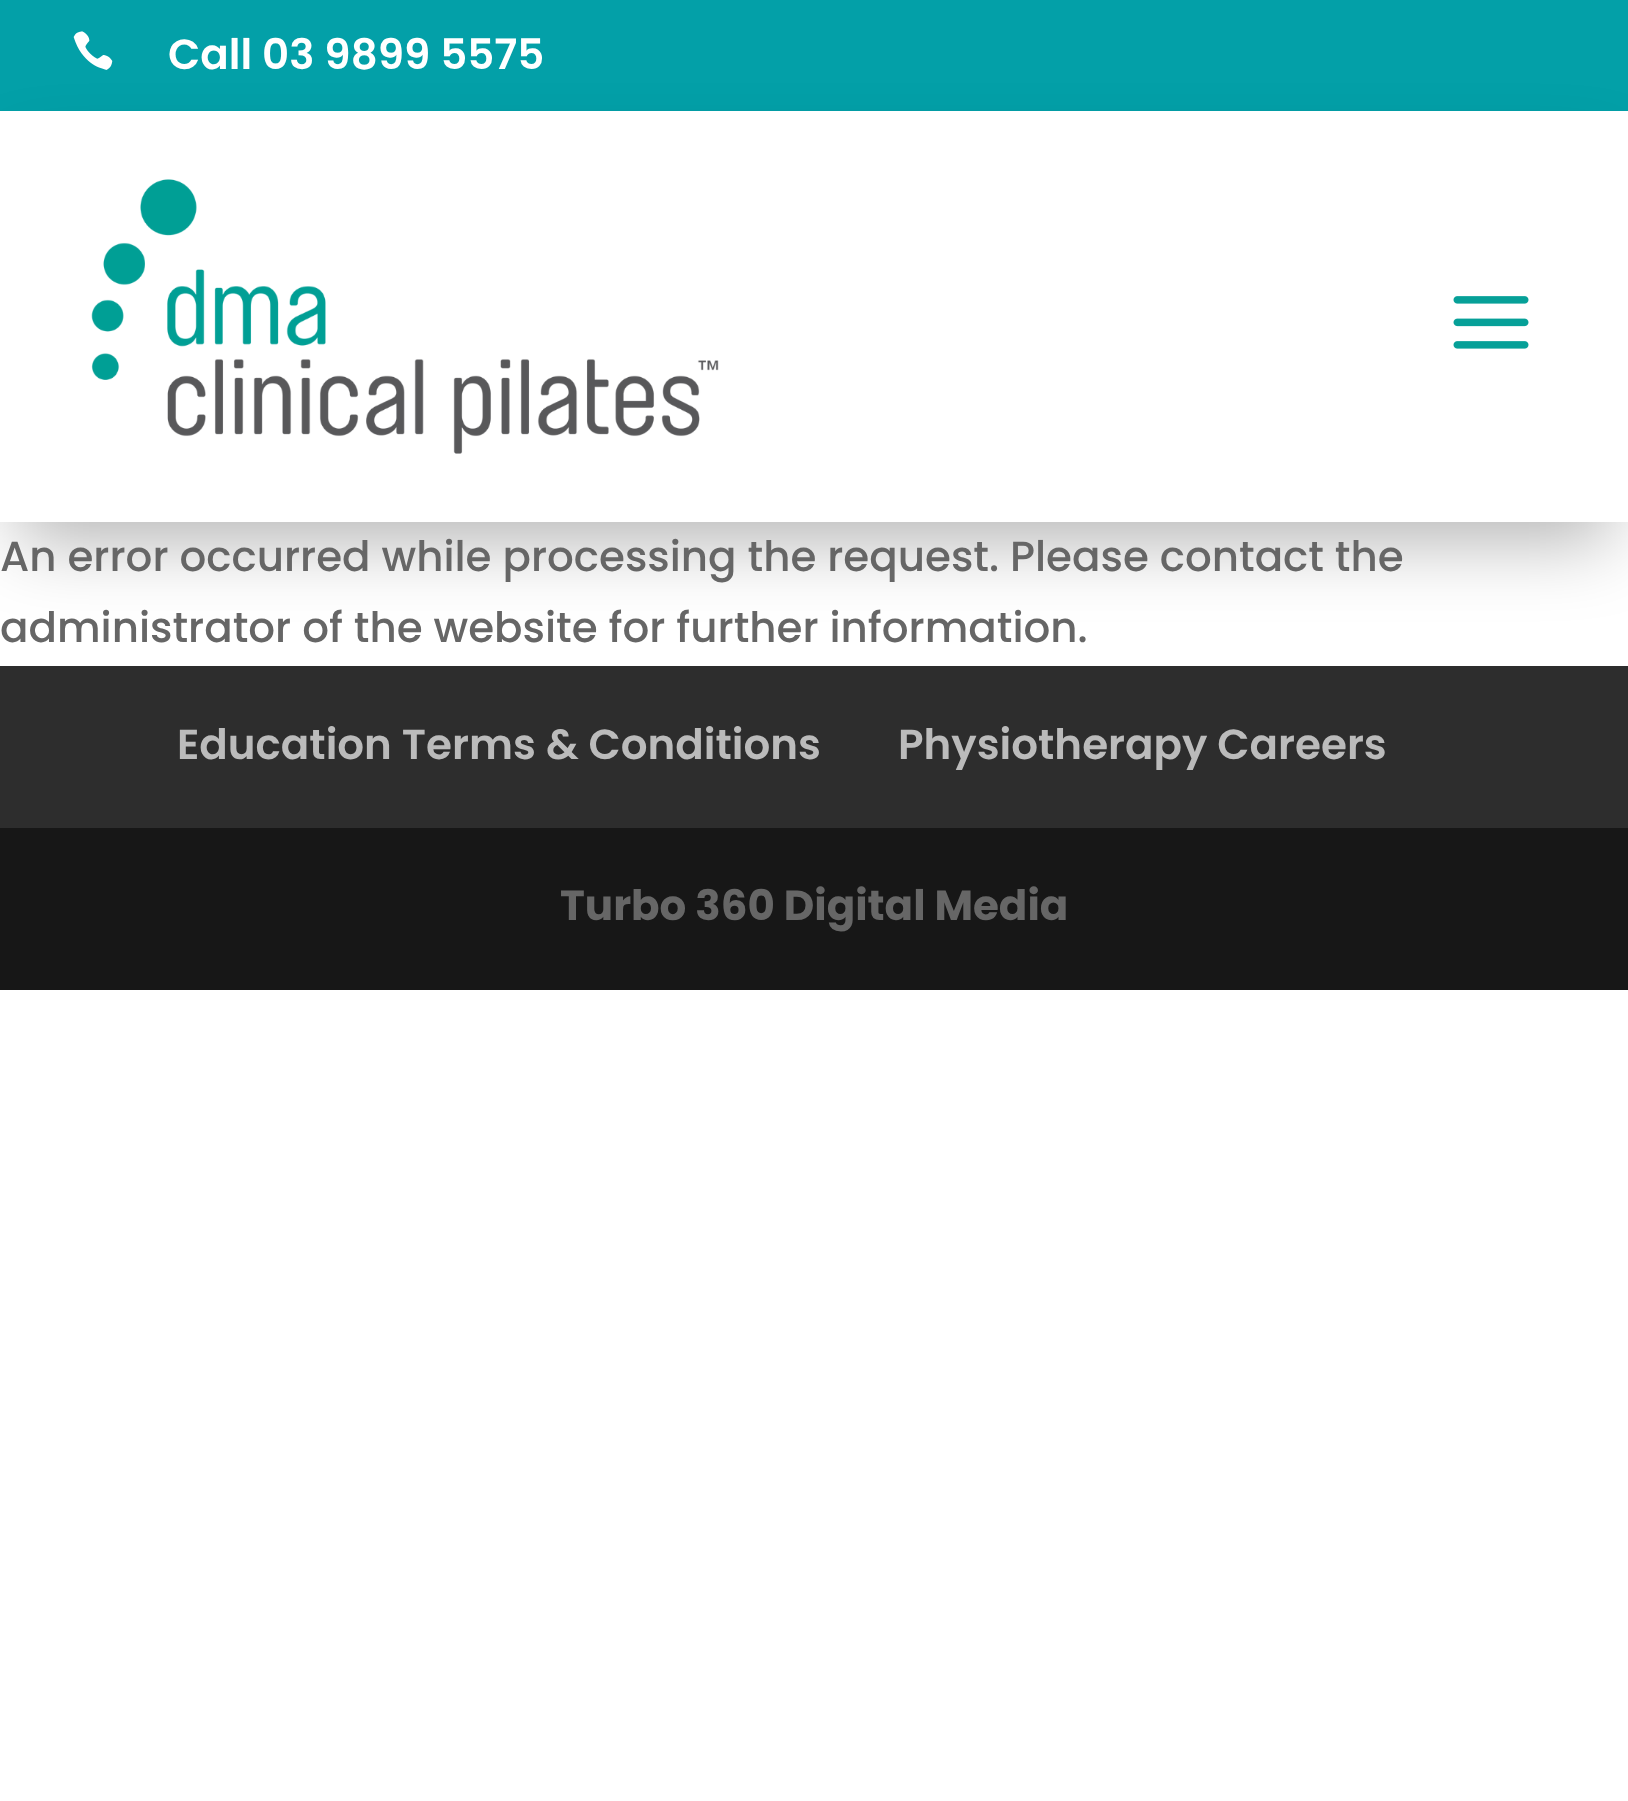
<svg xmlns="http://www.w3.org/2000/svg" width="1628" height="1801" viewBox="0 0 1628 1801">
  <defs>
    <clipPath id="clip1"><path d="M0 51H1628V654H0ZM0 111H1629V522H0Z" clip-rule="evenodd"/></clipPath>
  </defs>
  <rect width="100%" height="100%" fill="rgb(255,255,255)"/>
  <rect x="0" y="0" width="1628" height="111" fill="rgb(3,160,168)"/>
  <image x="73" y="31" width="40" height="39" href="pic1.png"/>
  <text x="168" y="69" font-family="Poppins" font-size="42" font-weight="600" fill="rgb(255,255,255)">Call 03 9899 5575</text>
  <g clip-path="url(#clip1)">
    <rect x="18" y="165" width="1593" height="375" fill="rgba(0,0,0,0.3)" filter="blur(37.5px)"/>
  </g>
  <image x="91" y="179" width="628" height="275" href="pic2.png"/>
  <image x="1453" y="296" width="76" height="53" href="pic3.png"/>
  <g font-family="Poppins" font-size="42" font-weight="500" fill="rgb(102,102,102)">
    <text>
      <tspan x="0" y="571">An error occurred while processing the request. Please contact the</tspan>
      <tspan x="0" y="642">administrator of the website for further information.</tspan>
    </text>
  </g>
  <rect x="0" y="666" width="1628" height="162" fill="rgb(45,45,45)"/>
  <g font-family="Poppins" font-size="42" font-weight="600" fill="rgb(187,187,187)">
    <text x="177" y="759">Education Terms &amp; Conditions</text>
    <text x="898" y="759">Physiotherapy Careers</text>
  </g>
  <rect x="0" y="828" width="1628" height="162" fill="rgb(23,23,23)"/>
  <text x="560" y="920" font-family="Poppins" font-size="42" font-weight="bold" fill="rgb(102,102,102)">Turbo 360 Digital Media</text>
</svg>
